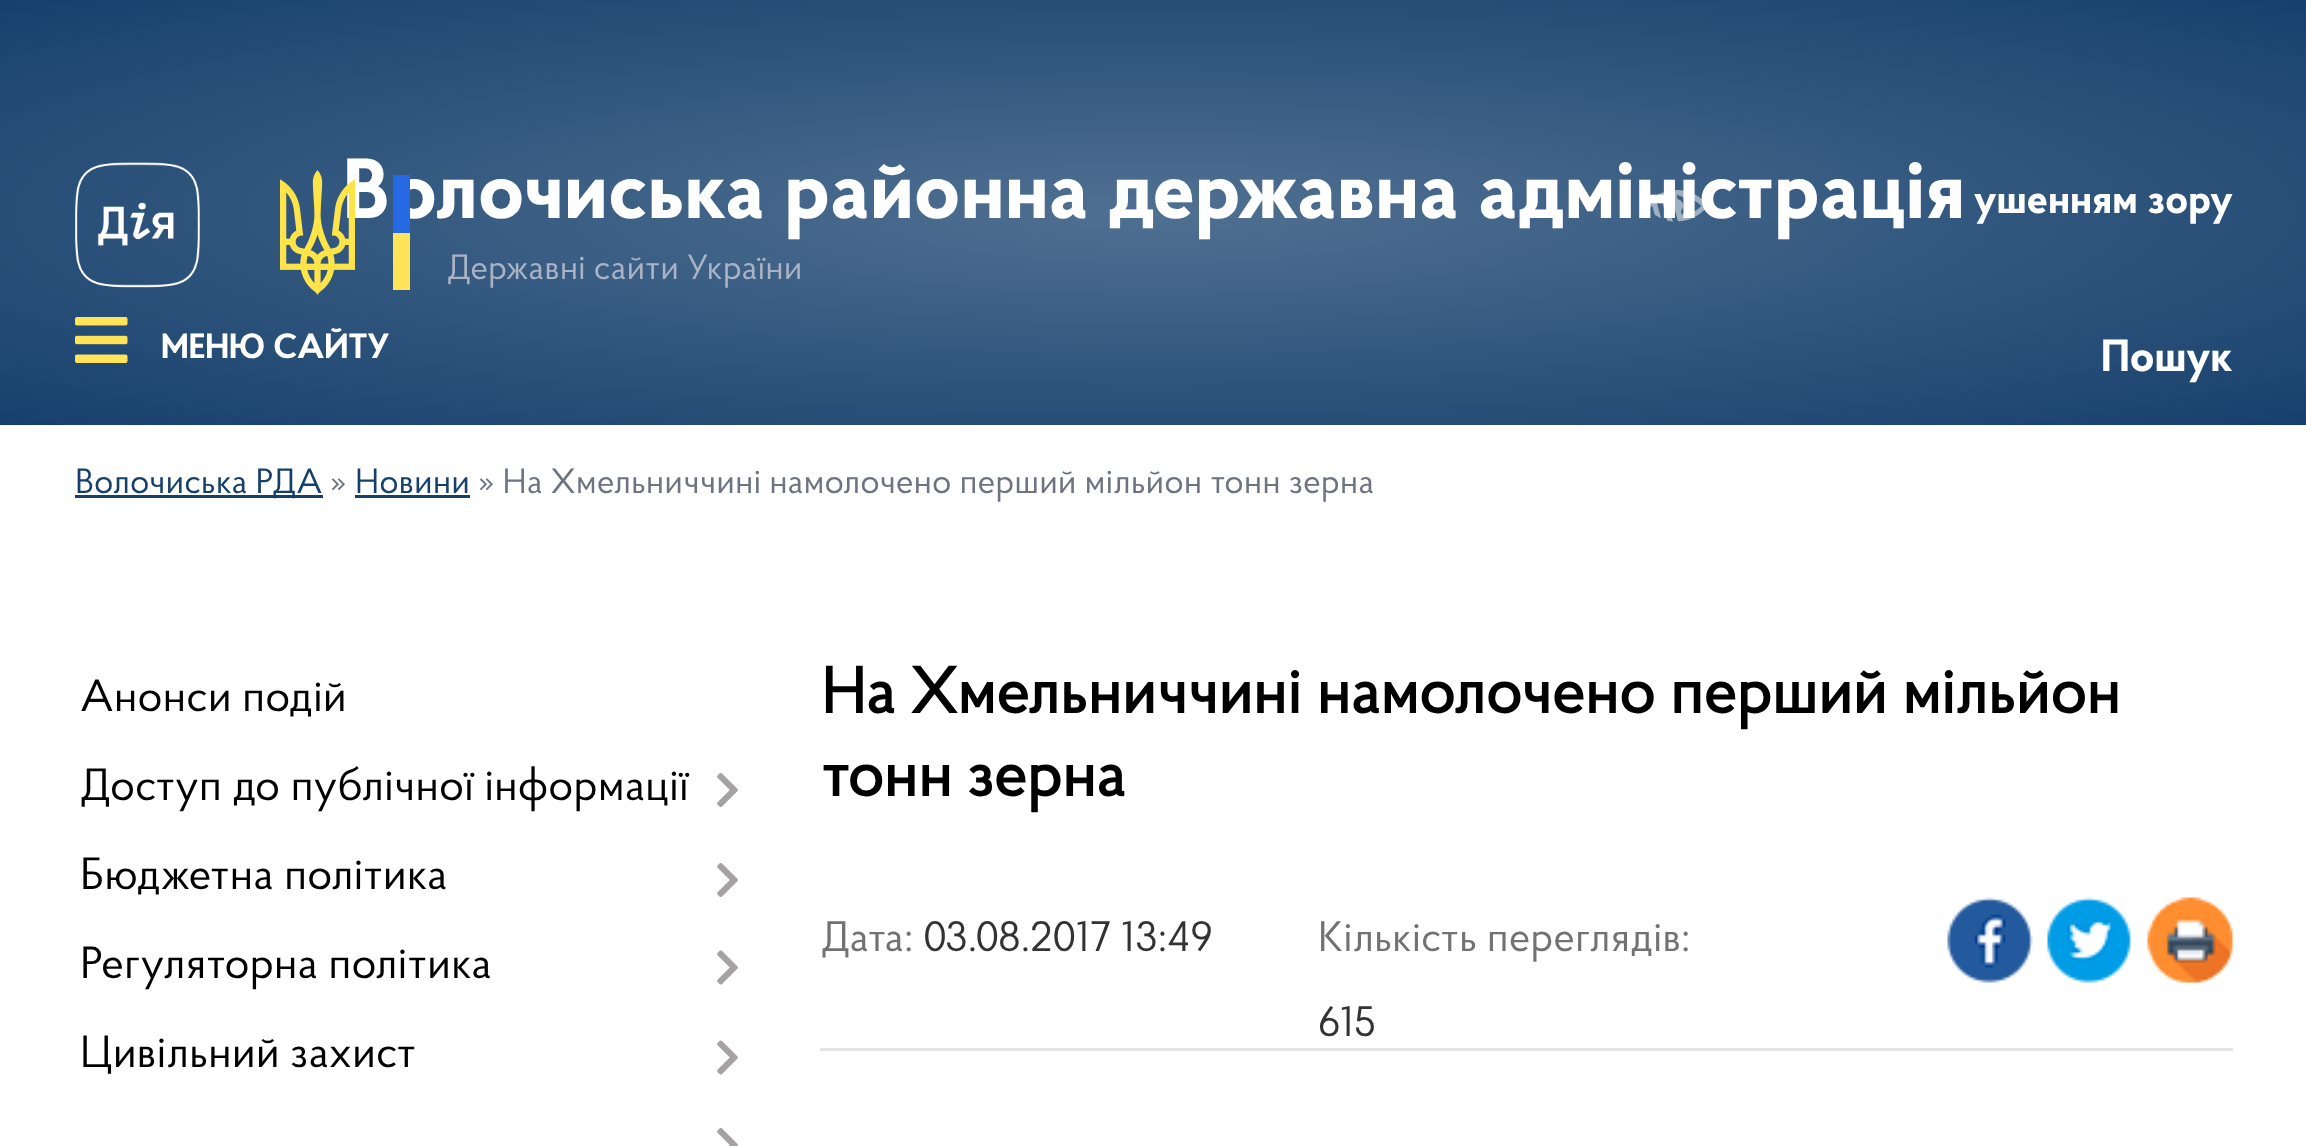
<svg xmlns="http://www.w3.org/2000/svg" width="2306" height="1146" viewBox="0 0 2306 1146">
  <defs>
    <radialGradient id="g1" gradientUnits="userSpaceOnUse" cx="0" cy="0" r="1" gradientTransform="matrix(1632 0 0 301 1154 213)"><stop offset="0" stop-color="rgb(80,112,146)"/><stop offset="1" stop-color="rgb(22,64,108)"/></radialGradient>
  </defs>
  <rect width="100%" height="100%" fill="rgb(255,255,255)"/>
  <rect x="0" y="0" width="2306" height="425" fill="url(#g1)"/>
  <text x="343" y="218" font-family="'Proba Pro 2'" font-size="85" font-weight="bold" fill="rgb(255,255,255)">Волочиська районна державна адміністрація</text>
  <image x="1649" y="190" width="56" height="32" href="pic1.png"/>
  <text x="1974" y="213" font-family="'Proba Pro 2'" font-size="42.5" font-weight="bold" fill="rgb(255,255,255)">ушенням зору</text>
  <image x="75" y="162" width="125" height="126" href="pic2.png"/>
  <image x="280" y="170" width="75" height="125" href="pic3.png"/>
  <rect x="393" y="175" width="17" height="58" fill="rgb(38,105,227)"/>
  <rect x="393" y="233" width="17" height="57" fill="rgb(255,227,88)"/>
  <text x="447" y="279" font-family="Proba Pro" font-size="35" fill="rgb(170,179,198)">Державні сайти України</text>
  <image x="75" y="317" width="53" height="46" href="pic4.png"/>
  <text x="161" y="358" font-family="'Proba Pro 2'" font-size="35" font-weight="bold" fill="rgb(255,255,255)">МЕНЮ САЙТУ</text>
  <text x="2101" y="371" font-family="'Proba Pro 2'" font-size="45" font-weight="bold" fill="rgb(255,255,255)">Пошук</text>
  <rect x="75" y="495" width="248" height="3" fill="rgb(22,64,108)"/>
  <text x="75" y="493" font-family="Proba Pro" font-size="35" fill="rgb(22,64,108)">Волочиська РДА</text>
  <text x="330" y="493" font-family="Proba Pro" font-size="35" fill="rgb(109,115,129)">»</text>
  <text x="355" y="493" font-family="Proba Pro" font-size="35" fill="rgb(22,64,108)">Новини</text>
  <rect x="355" y="495" width="115" height="3" fill="rgb(22,64,108)"/>
  <text x="478" y="493" font-family="Proba Pro" font-size="35" fill="rgb(109,115,129)">» На Хмельниччині намолочено перший мільйон тонн зерна</text>
  <g font-family="Proba Pro" font-size="45" fill="rgb(0,0,0)">
    <text>
      <tspan x="80" y="711">Анонси подій</tspan>
      <tspan x="80" y="800">Доступ до публічної інформації</tspan>
    </text>
  </g>
  <image x="717" y="773" width="21" height="34" href="pic5.png"/>
  <text x="80" y="889" font-family="Proba Pro" font-size="45" fill="rgb(0,0,0)">Бюджетна політика</text>
  <image x="717" y="863" width="21" height="34" href="pic5.png"/>
  <text x="80" y="978" font-family="Proba Pro" font-size="45" fill="rgb(0,0,0)">Регуляторна політика</text>
  <image x="717" y="950" width="21" height="35" href="pic6.png"/>
  <text x="80" y="1067" font-family="Proba Pro" font-size="45" fill="rgb(0,0,0)">Цивільний захист</text>
  <image x="717" y="1040" width="21" height="35" href="pic6.png"/>
  <image x="717" y="1128" width="21" height="18" href="pic7.png"/>
  <g font-family="Proba Pro" font-size="65" font-weight="bold" fill="rgb(0,0,0)">
    <text>
      <tspan x="821" y="713">На Хмельниччині намолочено перший мільйон</tspan>
      <tspan x="821" y="796">тонн зерна</tspan>
    </text>
  </g>
  <text x="821" y="951" font-family="Proba Pro" font-size="42.5" fill="rgb(114,114,114)">Дата:</text>
  <text x="923" y="951" font-family="Proba Pro" font-size="42.5" fill="rgb(51,51,51)">03.08.2017 13:49</text>
  <text x="1318" y="951" font-family="Proba Pro" font-size="42.5" fill="rgb(114,114,114)">Кількість переглядів:</text>
  <text x="1318" y="1036" font-family="Proba Pro" font-size="42.5" fill="rgb(51,51,51)">615</text>
  <image x="1947" y="897" width="86" height="86" href="pic8.png"/>
  <image x="2047" y="897" width="84" height="86" href="pic9.png"/>
  <image x="2147" y="897" width="86" height="86" href="pic10.png"/>
  <rect x="820" y="1048" width="1413" height="3" fill="rgb(229,229,229)"/>
</svg>
